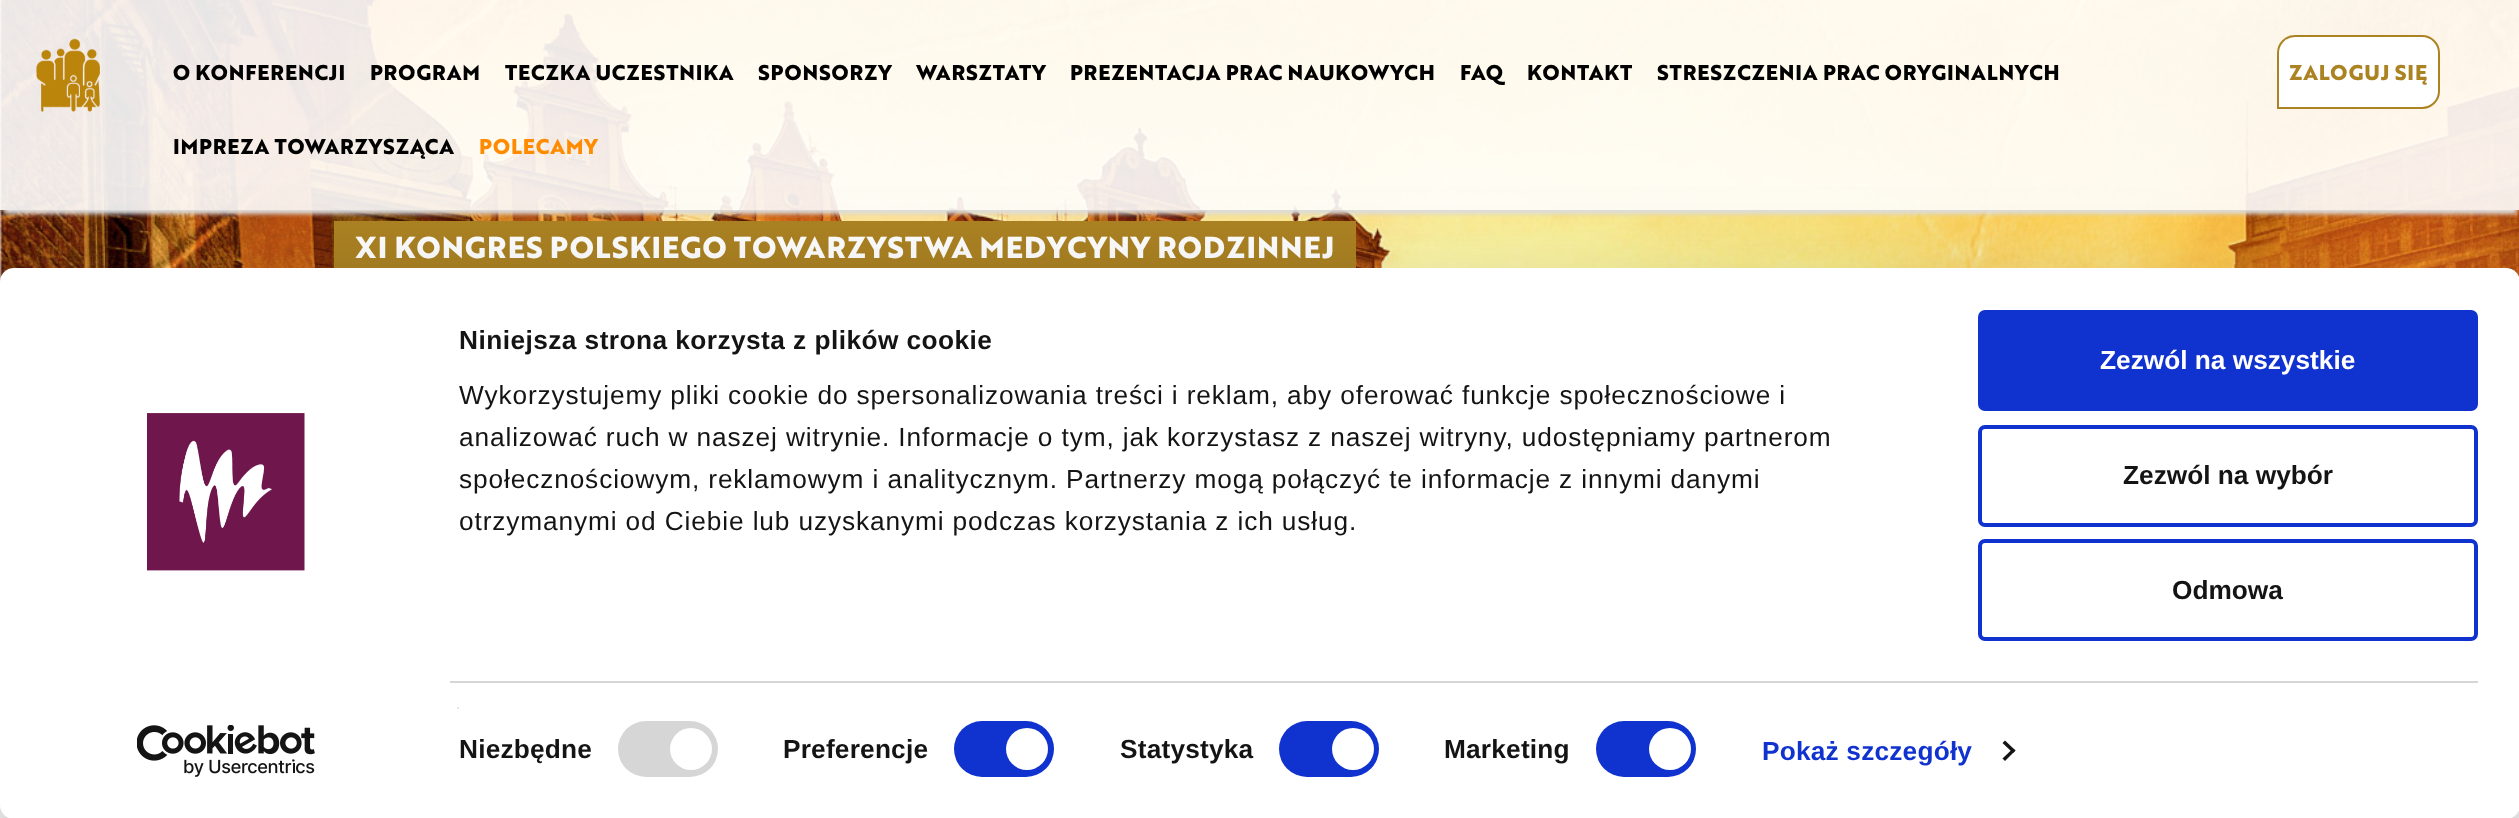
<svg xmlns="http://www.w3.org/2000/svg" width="2519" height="818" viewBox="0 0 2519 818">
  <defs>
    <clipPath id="clip1"><rect x="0" y="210" width="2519" height="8"/></clipPath>
  </defs>
  <rect width="100%" height="100%" fill="rgb(255,255,255)"/>
  <image x="0" y="0" width="2519" height="282" href="pic1.png"/>
  <g clip-path="url(#clip1)">
    <rect x="4" y="11" width="2513" height="203" fill="rgb(221,221,221)" filter="blur(2px)"/>
  </g>
  <rect x="0" y="0" width="2519" height="210" fill="rgba(255,255,255,0.9)"/>
  <image x="36" y="38" width="64" height="74" href="pic2.png"/>
  <g font-family="'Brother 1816'" font-size="20.8" font-weight="800" fill="rgb(0,0,0)">
    <text x="173" y="80">O KONFERENCJI</text>
    <text x="370" y="80">PROGRAM</text>
    <text x="505" y="80">TECZKA UCZESTNIKA</text>
    <text x="758" y="80">SPONSORZY</text>
    <text x="916" y="80">WARSZTATY</text>
    <text x="1070" y="80">PREZENTACJA PRAC NAUKOWYCH</text>
    <text x="1460" y="80">FAQ</text>
    <text x="1527" y="80">KONTAKT</text>
    <text x="1657" y="80">STRESZCZENIA PRAC ORYGINALNYCH</text>
    <text x="173" y="154">IMPREZA TOWARZYSZĄCA</text>
  </g>
  <text x="479" y="154" font-family="'Brother 1816'" font-size="20.8" font-weight="800" fill="rgb(255,140,0)">POLECAMY</text>
  <path d="M2295 36H2422C2431.5 36 2439 43.5 2439 53V91C2439 100.5 2431.5 108 2422 108H2278V53C2278 43.5 2285.5 36 2295 36Z" fill="rgb(255,255,255)" stroke="rgb(172,131,35)" stroke-width="2"/>
  <text x="2289" y="80" font-family="'Brother 1816'" font-size="20.8" font-weight="800" fill="rgb(172,131,35)">ZALOGUJ SIĘ</text>
  <rect x="355" y="221" width="1001" height="47" fill="rgb(172,131,35)"/>
  <text x="355" y="258" word-spacing="-0.25" font-family="'Brother 1816'" font-size="29.4" font-weight="800" fill="rgb(255,255,255)">XI KONGRES POLSKIEGO TOWARZYSTWA MEDYCYNY RODZINNEJ</text>
  <rect x="334" y="221" width="21" height="47" fill="rgb(172,131,35)"/>
  <rect x="0" y="320" width="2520" height="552" rx="14" fill="rgba(0,0,0,0.3)" filter="blur(61px)"/>
  <rect x="0" y="268" width="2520" height="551" rx="14" fill="rgb(255,255,255)"/>
  <image x="147" y="413" width="158" height="158" href="pic3.png"/>
  <image x="137" y="725" width="178" height="52" href="pic4.png"/>
  <text x="459" y="349" font-family="Liberation Sans" font-size="26.25" font-weight="bold" letter-spacing="0.45" fill="rgb(20,20,20)">Niniejsza strona korzysta z plików cookie</text>
  <g font-family="Liberation Sans" font-size="26.25" letter-spacing="0.88" fill="rgb(20,20,20)">
    <text>
      <tspan x="459" y="404">Wykorzystujemy pliki cookie do spersonalizowania treści i reklam, aby oferować funkcje społecznościowe i</tspan>
      <tspan x="459" y="446">analizować ruch w naszej witrynie. Informacje o tym, jak korzystasz z naszej witryny, udostępniamy partnerom</tspan>
      <tspan x="459" y="488">społecznościowym, reklamowym i analitycznym. Partnerzy mogą połączyć te informacje z innymi danymi</tspan>
      <tspan x="459" y="530">otrzymanymi od Ciebie lub uzyskanymi podczas korzystania z ich usług.</tspan>
    </text>
  </g>
  <rect x="450" y="681" width="2028" height="2" fill="rgb(214,214,214)"/>
  <rect x="457" y="707" width="2" height="2" fill="rgb(229,229,229)"/>
  <text x="459" y="758" font-family="Liberation Sans" font-size="26.25" font-weight="bold" letter-spacing="0.2" fill="rgb(20,20,20)">Niezbędne</text>
  <rect x="618" y="721" width="100" height="56" rx="28" fill="rgb(214,214,214)"/>
  <circle cx="691" cy="749" r="21" fill="rgb(255,255,255)"/>
  <text x="783" y="758" font-family="Liberation Sans" font-size="26.25" font-weight="bold" letter-spacing="0.2" fill="rgb(20,20,20)">Preferencje</text>
  <rect x="954" y="721" width="100" height="56" rx="28" fill="rgb(16,50,207)"/>
  <circle cx="1027" cy="749" r="21" fill="rgb(255,255,255)"/>
  <text x="1120" y="758" font-family="Liberation Sans" font-size="26.25" font-weight="bold" letter-spacing="0.2" fill="rgb(20,20,20)">Statystyka</text>
  <rect x="1279" y="721" width="100" height="56" rx="28" fill="rgb(16,50,207)"/>
  <circle cx="1353" cy="749" r="21" fill="rgb(255,255,255)"/>
  <text x="1444" y="758" font-family="Liberation Sans" font-size="26.25" font-weight="bold" letter-spacing="0.2" fill="rgb(20,20,20)">Marketing</text>
  <rect x="1596" y="721" width="100" height="56" rx="28" fill="rgb(16,50,207)"/>
  <circle cx="1670" cy="749" r="21" fill="rgb(255,255,255)"/>
  <text x="1762" y="760" font-family="Liberation Sans" font-size="26.25" font-weight="bold" letter-spacing="0.2" fill="rgb(16,50,207)">Pokaż szczegóły</text>
  <path d="M2005 740.5L2015.5 750.5L2013 753L2002.5 743Z" fill="rgb(20,20,20)"/>
  <path d="M2013 748.5L2015.5 750.5L2005 761L2002.5 758.5Z" fill="rgb(20,20,20)"/>
  <rect x="1980" y="312" width="496" height="97" rx="5" fill="rgb(16,50,207)" stroke="rgb(16,50,207)" stroke-width="4"/>
  <text x="2100" y="369" font-family="Liberation Sans" font-size="26.25" font-weight="bold" fill="rgb(255,255,255)">Zezwól na wszystkie</text>
  <rect x="1980" y="427" width="496" height="98" rx="5" fill="none" stroke="rgb(16,50,207)" stroke-width="4"/>
  <text x="2123" y="484" font-family="Liberation Sans" font-size="26.25" font-weight="bold" fill="rgb(20,20,20)">Zezwól na wybór</text>
  <rect x="1980" y="541" width="496" height="98" rx="5" fill="none" stroke="rgb(16,50,207)" stroke-width="4"/>
  <text x="2172" y="599" font-family="Liberation Sans" font-size="26.25" font-weight="bold" fill="rgb(20,20,20)">Odmowa</text>
</svg>
